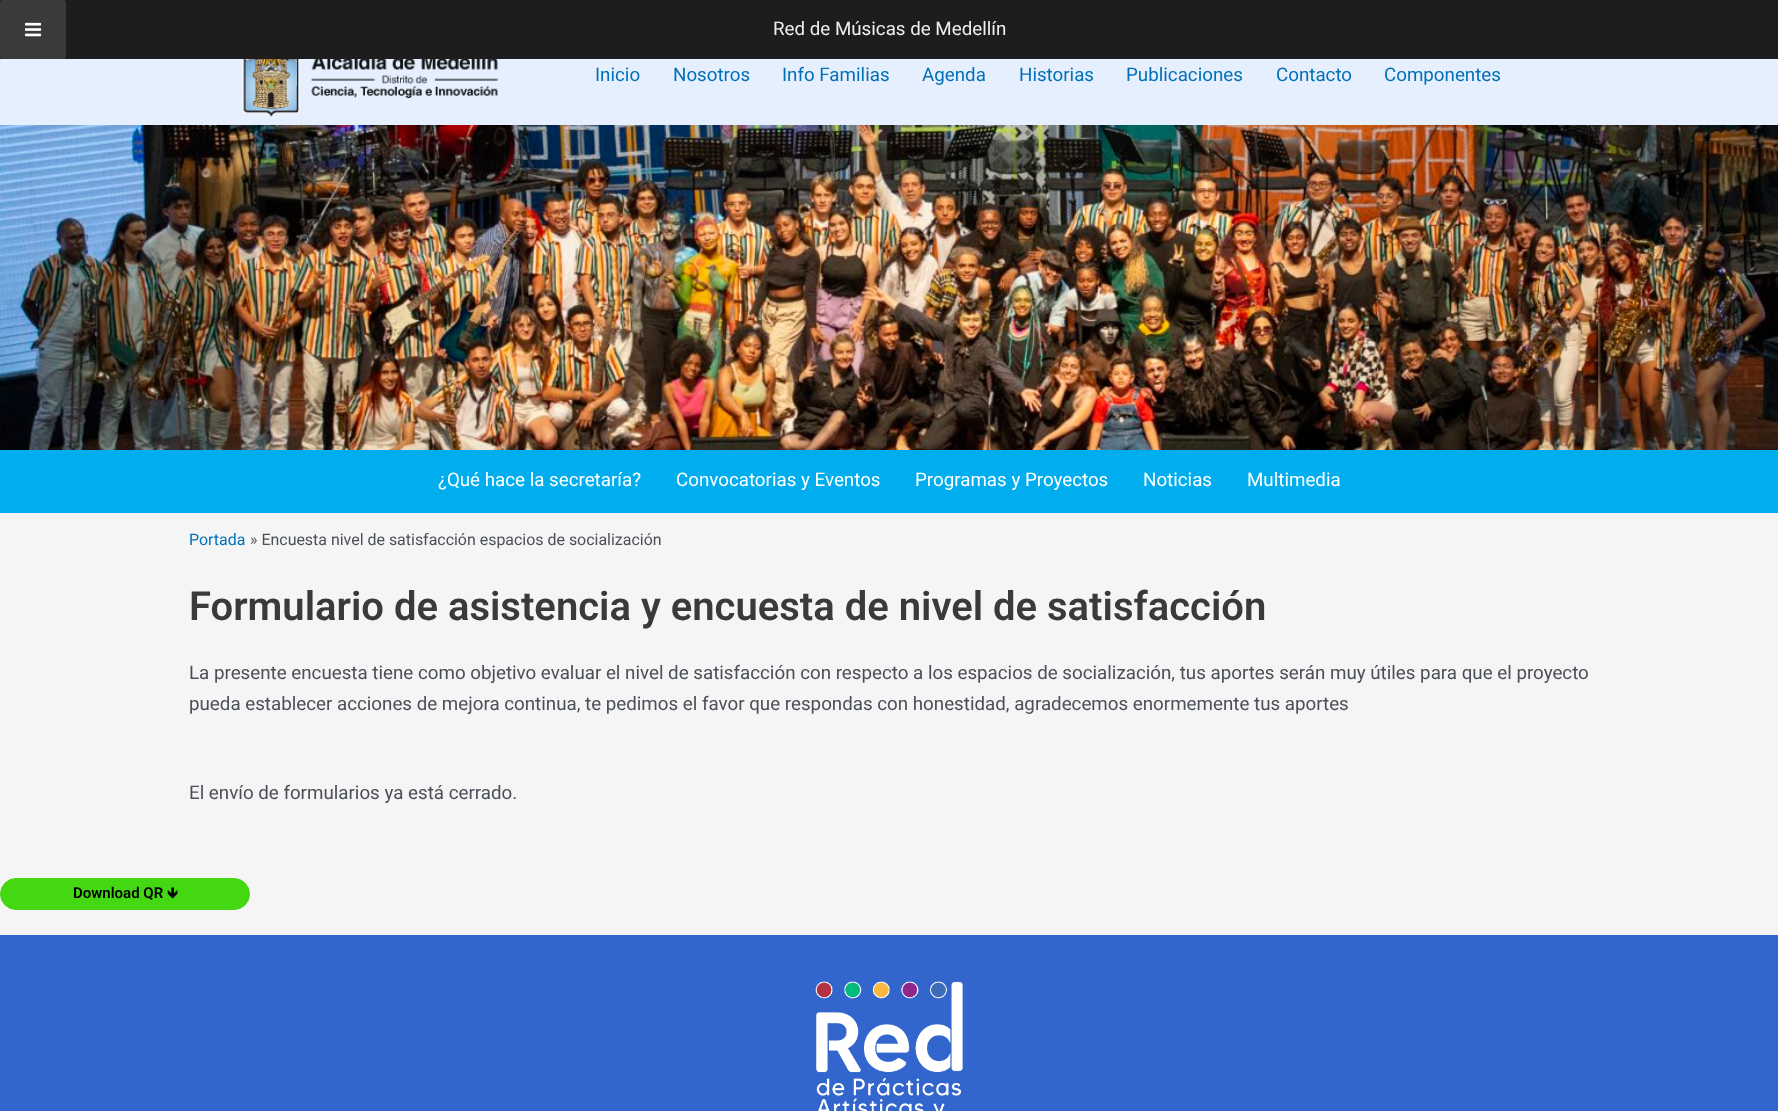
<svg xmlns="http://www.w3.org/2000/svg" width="1778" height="1111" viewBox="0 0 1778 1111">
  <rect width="100%" height="100%" fill="rgb(245,245,245)"/>
  <rect x="0" y="0" width="1778" height="59" fill="rgb(29,29,32)"/>
  <rect x="0" y="0" width="66" height="59" rx="2.5" fill="rgb(58,58,58)"/>
  <image x="25" y="22" width="17" height="15" href="pic1.png"/>
  <text x="773" y="35" font-family="Roboto" font-size="18.75" fill="rgb(238,238,238)">Red de Músicas de Medellín</text>
  <rect x="0" y="59" width="1778" height="66" fill="rgb(230,239,253)"/>
  <image x="242" y="59" width="256" height="58" href="pic2.png"/>
  <g font-family="Roboto" font-size="18.75" fill="rgb(1,112,185)">
    <text x="595" y="81">Inicio</text>
    <text x="673" y="81">Nosotros</text>
    <text x="782" y="81">Info Familias</text>
    <text x="922" y="81">Agenda</text>
    <text x="1019" y="81">Historias</text>
    <text x="1126" y="81">Publicaciones</text>
    <text x="1276" y="81">Contacto</text>
    <text x="1384" y="81">Componentes</text>
  </g>
  <image x="0" y="125" width="1778" height="325" href="pic3.png"/>
  <rect x="0" y="450" width="1778" height="63" fill="rgb(0,174,239)"/>
  <g font-family="Roboto" font-size="18.75" fill="rgb(255,255,255)">
    <text x="438" y="486">¿Qué hace la secretaría?</text>
    <text x="676" y="486">Convocatorias y Eventos</text>
    <text x="915" y="486">Programas y Proyectos</text>
    <text x="1143" y="486">Noticias</text>
    <text x="1247" y="486">Multimedia</text>
  </g>
  <text x="189" y="545" font-family="Roboto" font-size="15.95" fill="rgb(1,112,185)">Portada</text>
  <text x="250" y="545" font-family="Roboto" font-size="15.95" fill="rgb(75,79,88)">» Encuesta nivel de satisfacción espacios de socialización</text>
  <text x="189" y="620" font-family="Roboto" font-size="40" font-weight="600" fill="rgb(58,58,58)">Formulario de asistencia y encuesta de nivel de satisfacción</text>
  <g font-family="Roboto" font-size="18.75" fill="rgb(75,79,88)">
    <text>
      <tspan x="189" y="679">La presente encuesta tiene como objetivo evaluar el nivel de satisfacción con respecto a los espacios de socialización, tus aportes serán muy útiles para que el proyecto</tspan>
      <tspan x="189" y="710">pueda establecer acciones de mejora continua, te pedimos el favor que respondas con honestidad, agradecemos enormemente tus aportes</tspan>
    </text>
    <text x="189" y="799">El envío de formularios ya está cerrado.</text>
  </g>
  <rect x="0.5" y="878.5" width="249" height="31" rx="15.5" fill="rgb(68,216,19)" stroke="rgb(68,216,19)"/>
  <text x="73" y="898" font-family="Roboto" font-size="15" font-weight="600" fill="rgb(0,0,0)">Download QR</text>
  <text x="167" y="898" font-family="'Noto Sans Symbols 2'" font-size="15" font-weight="bold" fill="rgb(0,0,0)">🡻</text>
  <rect x="0" y="935" width="1778" height="176" fill="rgb(51,102,204)"/>
  <image x="815" y="981" width="148" height="130" href="pic4.png"/>
</svg>
